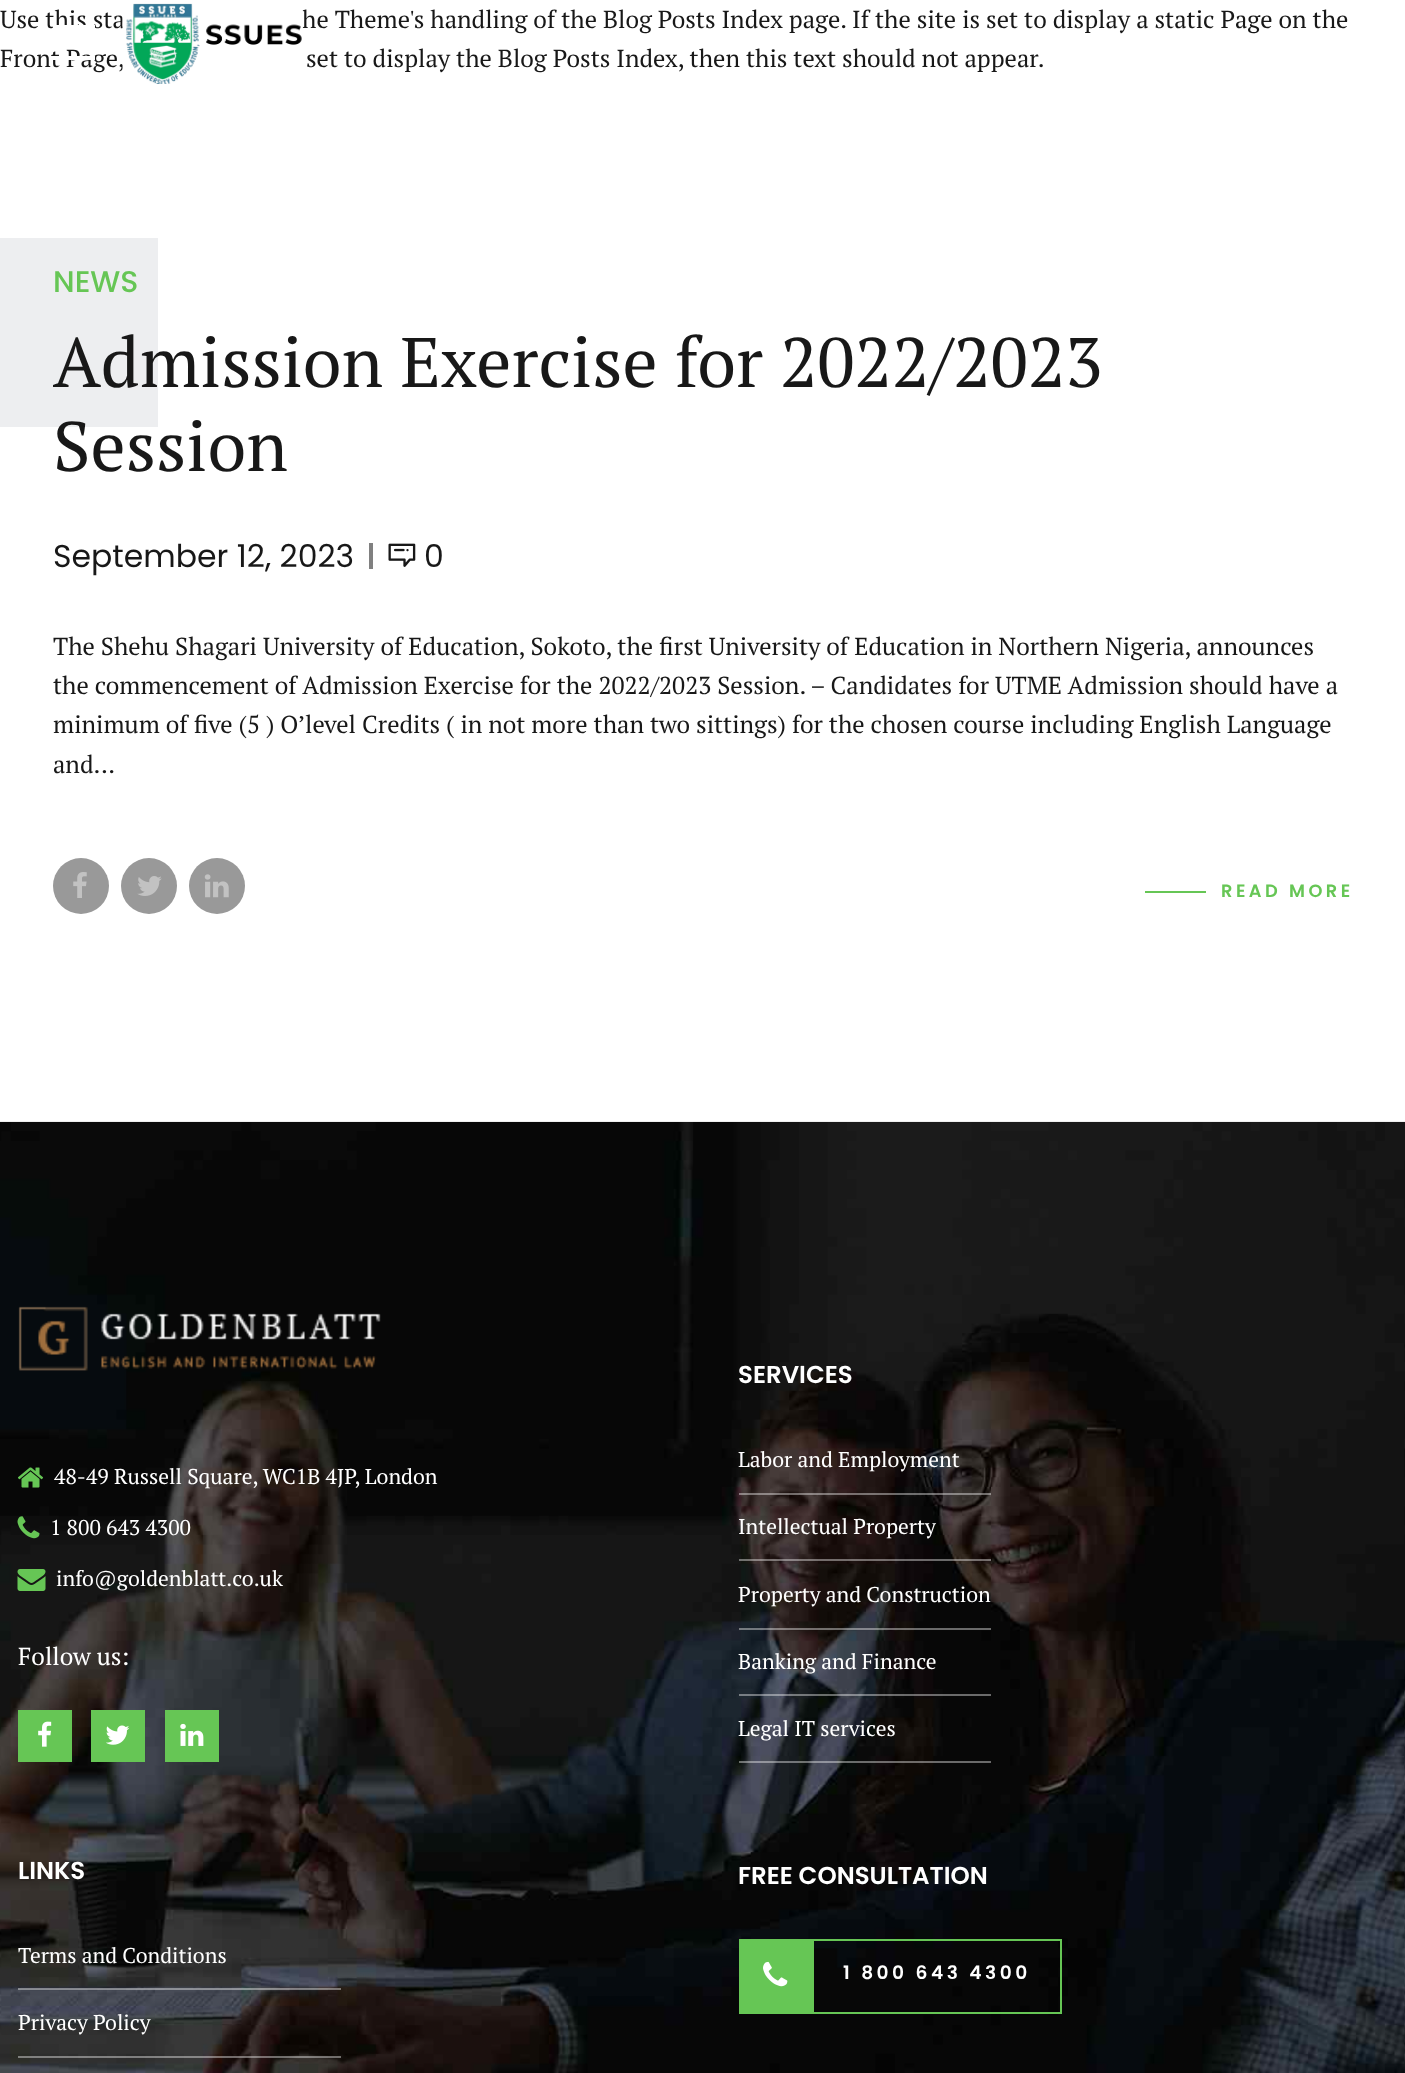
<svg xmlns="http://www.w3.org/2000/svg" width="1405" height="2073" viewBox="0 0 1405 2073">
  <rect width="100%" height="100%" fill="rgb(255,255,255)"/>
  <text x="0" y="28" font-family="PT Serif" font-size="24.5" fill="rgb(24,24,24)">Use this sta</text>
  <rect x="53" y="25" width="42" height="4" fill="rgb(255,255,255)"/>
  <text x="0" y="67" font-family="PT Serif" font-size="24.5" fill="rgb(24,24,24)">Front Page,</text>
  <rect x="53" y="56" width="42" height="4" fill="rgb(255,255,255)"/>
  <text x="302" y="28" font-family="PT Serif" font-size="24.5" fill="rgb(24,24,24)">he Theme's handling of the Blog Posts Index page. If the site is set to display a static Page on the</text>
  <image x="122" y="3" width="181" height="81" href="pic1.png"/>
  <text x="306" y="67" font-family="PT Serif" font-size="24.5" fill="rgb(24,24,24)">set to display the Blog Posts Index, then this text should not appear.</text>
  <rect x="0" y="238" width="158" height="189" fill="rgb(237,238,240)"/>
  <text x="53" y="292" font-family="Poppins" font-size="30" font-weight="500" fill="rgb(102,198,85)">NEWS</text>
  <g font-family="PT Serif" font-size="70" fill="rgb(24,24,24)">
    <text>
      <tspan x="53" y="387">Admission Exercise for 2022/2023</tspan>
      <tspan x="53" y="471">Session</tspan>
    </text>
  </g>
  <text x="53" y="567" font-family="Poppins" font-size="31.5" fill="rgb(24,24,24)">September 12, 2023</text>
  <rect x="369" y="543" width="4" height="26" fill="rgb(128,128,128)"/>
  <image x="388" y="543" width="28" height="24" href="pic2.png"/>
  <text x="424" y="567" font-family="Poppins" font-size="31.5" fill="rgb(24,24,24)">0</text>
  <g font-family="PT Serif" font-size="24.5" fill="rgb(24,24,24)">
    <text>
      <tspan x="53" y="655">The Shehu Shagari University of Education, Sokoto, the first University of Education in Northern Nigeria, announces</tspan>
      <tspan x="53" y="694">the commencement of Admission Exercise for the 2022/2023 Session. – Candidates for UTME Admission should have a</tspan>
      <tspan x="53" y="733">minimum of five (5 ) O’level Credits ( in not more than two sittings) for the chosen course including English Language</tspan>
      <tspan x="53" y="773">and...</tspan>
    </text>
  </g>
  <circle cx="81" cy="886" r="28" fill="rgb(153,153,153)"/>
  <image x="73" y="872" width="14" height="26" href="pic3.png"/>
  <circle cx="149" cy="886" r="28" fill="rgb(153,153,153)"/>
  <image x="137" y="876" width="25" height="20" href="pic4.png"/>
  <circle cx="217" cy="886" r="28" fill="rgb(153,153,153)"/>
  <image x="204" y="874" width="25" height="24" href="pic5.png"/>
  <rect x="1145" y="891" width="61" height="2" fill="rgb(102,198,85)"/>
  <text x="1221" y="897" font-family="Poppins" font-size="17.75" font-weight="600" letter-spacing="3.5" fill="rgb(102,198,85)">READ MORE</text>
  <image x="0" y="1121" width="1405" height="952" href="pic6.png"/>
  <image x="18" y="1306" width="363" height="65" href="pic7.png"/>
  <image x="17" y="1467" width="27" height="21" href="pic8.png"/>
  <text x="54" y="1484" font-family="PT Serif" font-size="21.4" fill="rgb(255,255,255)">48-49 Russell Square, WC1B 4JP, London</text>
  <image x="17" y="1516" width="23" height="23" href="pic9.png"/>
  <text x="50" y="1535" font-family="PT Serif" font-size="21.4" fill="rgb(255,255,255)">1 800 643 4300</text>
  <image x="17" y="1569" width="29" height="22" href="pic10.png"/>
  <text x="56" y="1586" font-family="PT Serif" font-size="21.4" fill="rgb(255,255,255)">info@goldenblatt.co.uk</text>
  <text x="18" y="1665" font-family="PT Serif" font-size="24.5" fill="rgb(255,255,255)">Follow us:</text>
  <rect x="18" y="1710" width="54" height="52" fill="rgb(102,198,85)"/>
  <image x="38" y="1721" width="14" height="26" href="pic11.png"/>
  <rect x="91" y="1710" width="54" height="52" fill="rgb(102,198,85)"/>
  <image x="106" y="1725" width="24" height="20" href="pic12.png"/>
  <rect x="165" y="1710" width="54" height="52" fill="rgb(102,198,85)"/>
  <image x="180" y="1723" width="24" height="23" href="pic13.png"/>
  <text x="738" y="1383" font-family="Poppins" font-size="24.5" font-weight="600" fill="rgb(255,255,255)">SERVICES</text>
  <rect x="739" y="1493" width="252" height="2" fill="rgba(255,255,255,0.4)"/>
  <text x="738" y="1467" font-family="PT Serif" font-size="21.4" fill="rgb(255,255,255)">Labor and Employment</text>
  <rect x="739" y="1559" width="252" height="2" fill="rgba(255,255,255,0.4)"/>
  <text x="738" y="1534" font-family="PT Serif" font-size="21.4" fill="rgb(255,255,255)">Intellectual Property</text>
  <rect x="739" y="1628" width="252" height="2" fill="rgba(255,255,255,0.4)"/>
  <text x="738" y="1602" font-family="PT Serif" font-size="21.4" fill="rgb(255,255,255)">Property and Construction</text>
  <rect x="739" y="1694" width="252" height="2" fill="rgba(255,255,255,0.4)"/>
  <text x="738" y="1669" font-family="PT Serif" font-size="21.4" fill="rgb(255,255,255)">Banking and Finance</text>
  <rect x="739" y="1761" width="252" height="2" fill="rgba(255,255,255,0.4)"/>
  <text x="738" y="1736" font-family="PT Serif" font-size="21.4" fill="rgb(255,255,255)">Legal IT services</text>
  <text x="18" y="1879" font-family="Poppins" font-size="24.5" font-weight="600" fill="rgb(255,255,255)">LINKS</text>
  <rect x="18" y="1988" width="323" height="2" fill="rgba(255,255,255,0.4)"/>
  <text x="18" y="1963" font-family="PT Serif" font-size="21.4" fill="rgb(255,255,255)">Terms and Conditions</text>
  <rect x="18" y="2056" width="323" height="2" fill="rgba(255,255,255,0.4)"/>
  <text x="18" y="2030" font-family="PT Serif" font-size="21.4" fill="rgb(255,255,255)">Privacy Policy</text>
  <text x="738" y="1884" font-family="Poppins" font-size="24.5" font-weight="600" fill="rgb(255,255,255)">FREE CONSULTATION</text>
  <rect x="739" y="1939" width="73" height="75" fill="rgb(102,198,85)"/>
  <image x="763" y="1961" width="25" height="26" href="pic14.png"/>
  <rect x="813" y="1940" width="248" height="73" fill="none" stroke="rgb(102,198,85)" stroke-width="2"/>
  <text x="843" y="1979" font-family="Poppins" font-size="18.6" font-weight="600" letter-spacing="3.5" fill="rgb(255,255,255)">1 800 643 4300</text>
</svg>
